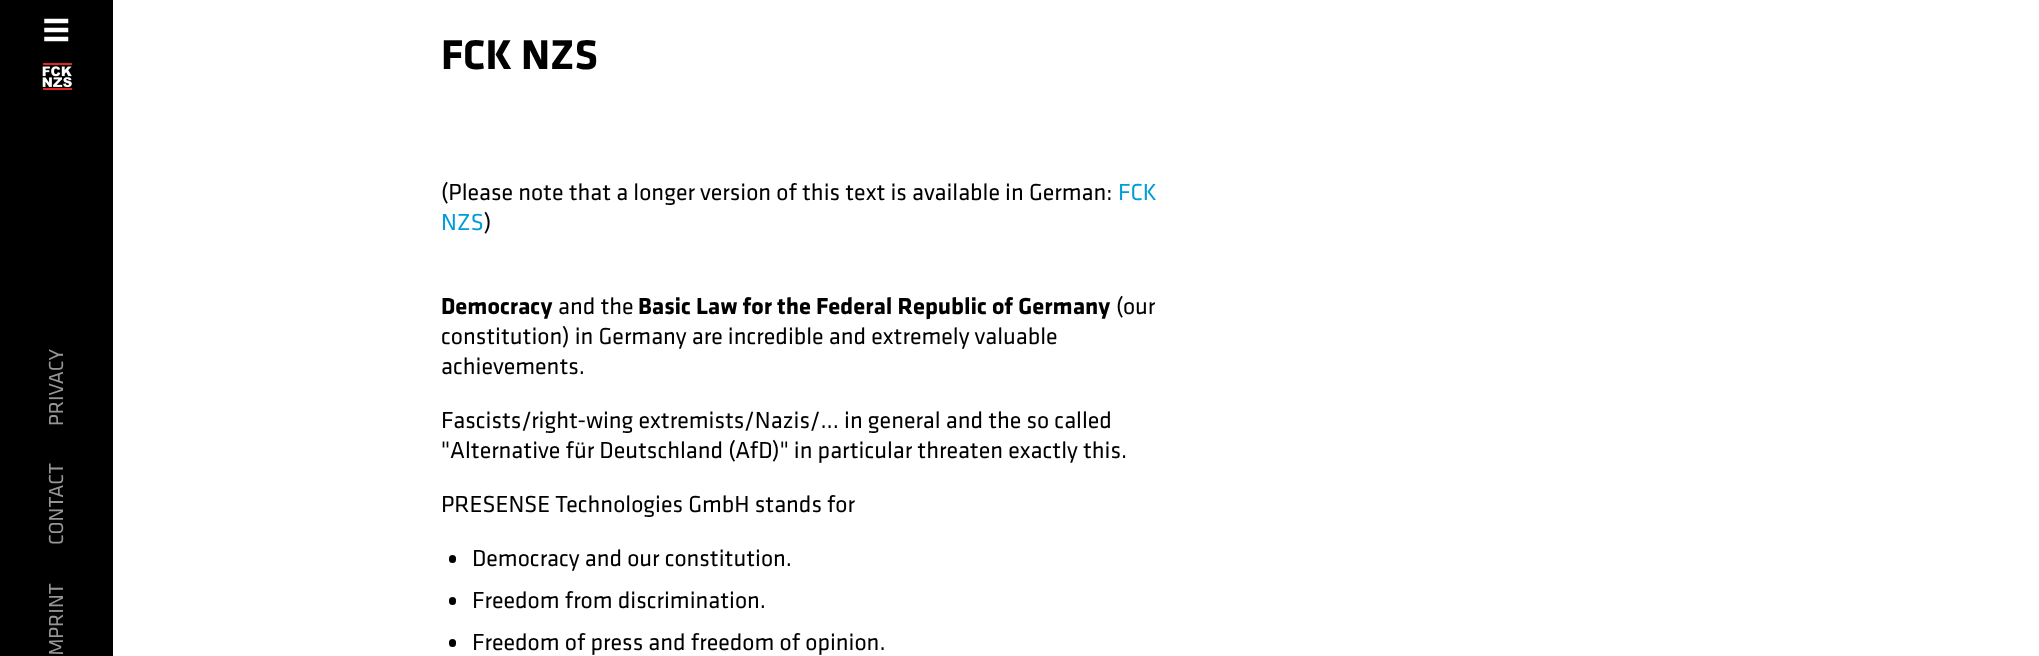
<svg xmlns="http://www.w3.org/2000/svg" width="2039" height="656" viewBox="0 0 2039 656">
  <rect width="100%" height="100%" fill="rgb(255,255,255)"/>
  <rect x="0" y="0" width="113" height="656" fill="rgb(0,0,0)"/>
  <image x="44" y="18" width="25" height="24" href="pic1.png"/>
  <image x="42" y="63" width="30" height="27" href="pic2.png"/>
  <g font-family="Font" font-size="21" fill="rgb(150,150,150)">
    <text x="63" y="426" transform="rotate(-90 63 426)">PRIVACY</text>
    <text x="63" y="545" transform="rotate(-90 63 545)">CONTACT</text>
    <text x="63" y="661" transform="rotate(-90 63 661)">IMPRINT</text>
  </g>
  <text x="441" y="69" font-family="Font" font-size="43" font-weight="bold" fill="rgb(0,0,0)">FCK NZS</text>
  <text x="441" y="200" font-family="Font" font-size="24" fill="rgb(0,0,0)">(Please note that a longer version of this text is available in German:</text>
  <g font-family="Font" font-size="24" fill="rgb(0,157,215)">
    <text x="1118" y="200">FCK</text>
    <text x="441" y="230">NZS</text>
  </g>
  <text x="484" y="230" font-family="Font" font-size="24" fill="rgb(0,0,0)">)</text>
  <text x="441" y="314" font-family="Font" font-size="24" font-weight="bold" fill="rgb(0,0,0)">Democracy</text>
  <text x="558" y="314" font-family="Font" font-size="24" fill="rgb(0,0,0)">and the</text>
  <text x="638" y="314" font-family="Font" font-size="24" font-weight="bold" fill="rgb(0,0,0)">Basic Law for the Federal Republic of Germany</text>
  <g font-family="Font" font-size="24" fill="rgb(0,0,0)">
    <text x="1116" y="314">(our</text>
    <text>
      <tspan x="441" y="344">constitution) in Germany are incredible and extremely valuable</tspan>
      <tspan x="441" y="374">achievements.</tspan>
    </text>
    <text>
      <tspan x="441" y="428">Fascists/right-wing extremists/Nazis/... in general and the so called</tspan>
      <tspan x="441" y="458">"Alternative für Deutschland (AfD)" in particular threaten exactly this.</tspan>
    </text>
    <text x="441" y="512">PRESENSE Technologies GmbH stands for</text>
  </g>
  <rect x="449" y="555" width="7" height="8" rx="3.5" fill="rgb(0,0,0)"/>
  <text x="472" y="566" font-family="Font" font-size="24" fill="rgb(0,0,0)">Democracy and our constitution.</text>
  <rect x="449" y="597" width="7" height="8" rx="3.5" fill="rgb(0,0,0)"/>
  <text x="472" y="608" font-family="Font" font-size="24" fill="rgb(0,0,0)">Freedom from discrimination.</text>
  <rect x="449" y="639" width="7" height="8" rx="3.5" fill="rgb(0,0,0)"/>
  <text x="472" y="650" font-family="Font" font-size="24" fill="rgb(0,0,0)">Freedom of press and freedom of opinion.</text>
</svg>
